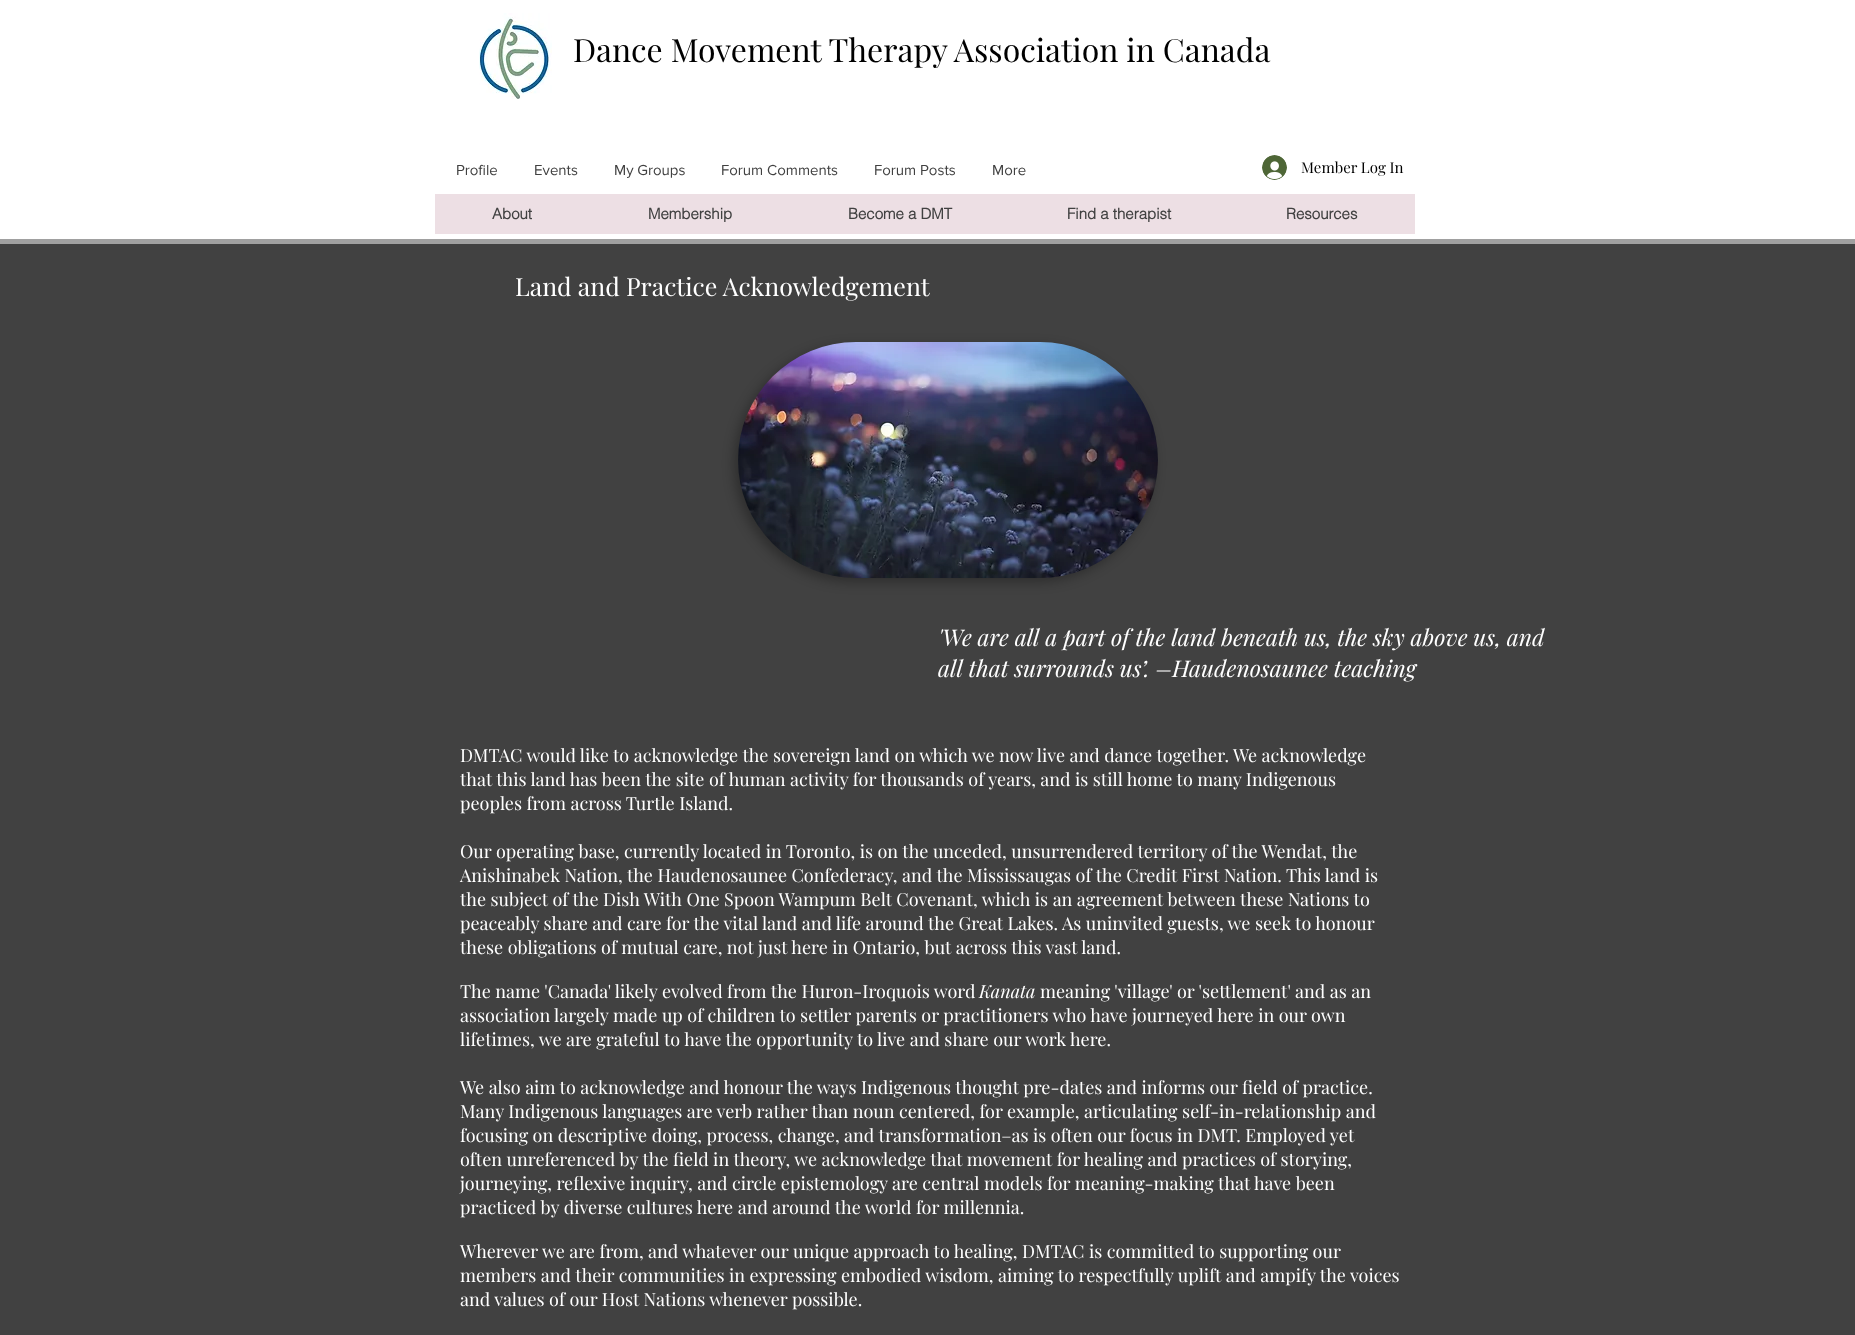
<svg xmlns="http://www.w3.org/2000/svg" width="1855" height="1335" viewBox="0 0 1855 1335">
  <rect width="100%" height="100%" fill="rgb(255,255,255)"/>
  <image x="479" y="13" width="73" height="86" href="pic1.png"/>
  <text x="573" y="62" font-family="Playfair Display" font-size="32" fill="rgb(0,0,0)">Dance Movement Therapy Association in Canada</text>
  <g font-family="'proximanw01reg'" font-size="15" fill="rgb(65,65,65)">
    <text x="456" y="175">Profile</text>
    <text x="534" y="175">Events</text>
    <text x="614" y="175">My Groups</text>
    <text x="721" y="175">Forum Comments</text>
    <text x="874" y="175">Forum Posts</text>
    <text x="992" y="175">More</text>
  </g>
  <image x="1262" y="155" width="25" height="25" href="pic2.png"/>
  <text x="1301" y="173" font-family="Playfair Display" font-size="15" fill="rgb(0,0,0)">Member Log In</text>
  <rect x="435" y="194" width="980" height="40" fill="rgb(237,223,228)"/>
  <g font-family="helvetica" font-size="15" font-weight="bold" fill="rgb(65,65,65)">
    <text x="492" y="219">About</text>
    <text x="648" y="219">Membership</text>
    <text x="848" y="219">Become a DMT</text>
    <text x="1067" y="219">Find a therapist</text>
    <text x="1286" y="219">Resources</text>
  </g>
  <rect x="0" y="239" width="1855" height="5" fill="rgb(160,160,160)"/>
  <rect x="0" y="244" width="1855" height="1091" fill="rgb(65,65,65)"/>
  <text x="515" y="296" font-family="Playfair Display" font-size="25" fill="rgb(255,255,255)">Land and Practice Acknowledgement</text>
  <rect x="734" y="346" width="420" height="236" rx="118" fill="rgba(0,0,0,0.3)" filter="blur(6px)"/>
  <image x="738" y="342" width="420" height="236" href="pic3.png"/>
  <g font-family="Playfair Display" font-size="23" font-style="italic" fill="rgb(255,255,255)">
    <text>
      <tspan x="938" y="646">'We are all a part of the land beneath us, the sky above us, and</tspan>
      <tspan x="938" y="677">all that surrounds us’. –Haudenosaunee teaching</tspan>
    </text>
  </g>
  <g font-family="Playfair Display" font-size="18" fill="rgb(255,255,255)">
    <text>
      <tspan x="460" y="762">DMTAC would like to acknowledge the sovereign land on which we now live and dance together. We acknowledge</tspan>
      <tspan x="460" y="786">that this land has been the site of human activity for thousands of years, and is still home to many Indigenous</tspan>
      <tspan x="460" y="810">peoples from across Turtle Island.</tspan>
    </text>
    <text>
      <tspan x="460" y="858">Our operating base, currently located in Toronto, is on the unceded, unsurrendered territory of the Wendat, the</tspan>
      <tspan x="460" y="882">Anishinabek Nation, the Haudenosaunee Confederacy, and the Mississaugas of the Credit First Nation. This land is</tspan>
      <tspan x="460" y="906">the subject of the Dish With One Spoon Wampum Belt Covenant, which is an agreement between these Nations to</tspan>
      <tspan x="460" y="930">peaceably share and care for the vital land and life around the Great Lakes. As uninvited guests, we seek to honour</tspan>
      <tspan x="460" y="954">these obligations of mutual care, not just here in Ontario, but across this vast land.</tspan>
    </text>
    <text x="460" y="998">The name 'Canada' likely evolved from the Huron-Iroquois word</text>
  </g>
  <text x="979" y="998" font-family="Playfair Display" font-size="18" font-style="italic" fill="rgb(255,255,255)">Kanata</text>
  <g font-family="Playfair Display" font-size="18" fill="rgb(255,255,255)">
    <text x="1040" y="998">meaning 'village' or 'settlement' and as an</text>
    <text>
      <tspan x="460" y="1022">association largely made up of children to settler parents or practitioners who have journeyed here in our own</tspan>
      <tspan x="460" y="1046">lifetimes, we are grateful to have the opportunity to live and share our work here.</tspan>
    </text>
    <text>
      <tspan x="460" y="1094">We also aim to acknowledge and honour the ways Indigenous thought pre-dates and informs our field of practice.</tspan>
      <tspan x="460" y="1118">Many Indigenous languages are verb rather than noun centered, for example, articulating self-in-relationship and</tspan>
      <tspan x="460" y="1142">focusing on descriptive doing, process, change, and transformation–as is often our focus in DMT. Employed yet</tspan>
      <tspan x="460" y="1166">often unreferenced by the field in theory, we acknowledge that movement for healing and practices of storying,</tspan>
      <tspan x="460" y="1190">journeying, reflexive inquiry, and circle epistemology are central models for meaning-making that have been</tspan>
      <tspan x="460" y="1214">practiced by diverse cultures here and around the world for millennia.</tspan>
    </text>
    <text>
      <tspan x="460" y="1258">Wherever we are from, and whatever our unique approach to healing, DMTAC is committed to supporting our</tspan>
      <tspan x="460" y="1282">members and their communities in expressing embodied wisdom, aiming to respectfully uplift and ampify the voices</tspan>
      <tspan x="460" y="1306">and values of our Host Nations whenever possible.</tspan>
    </text>
  </g>
</svg>
